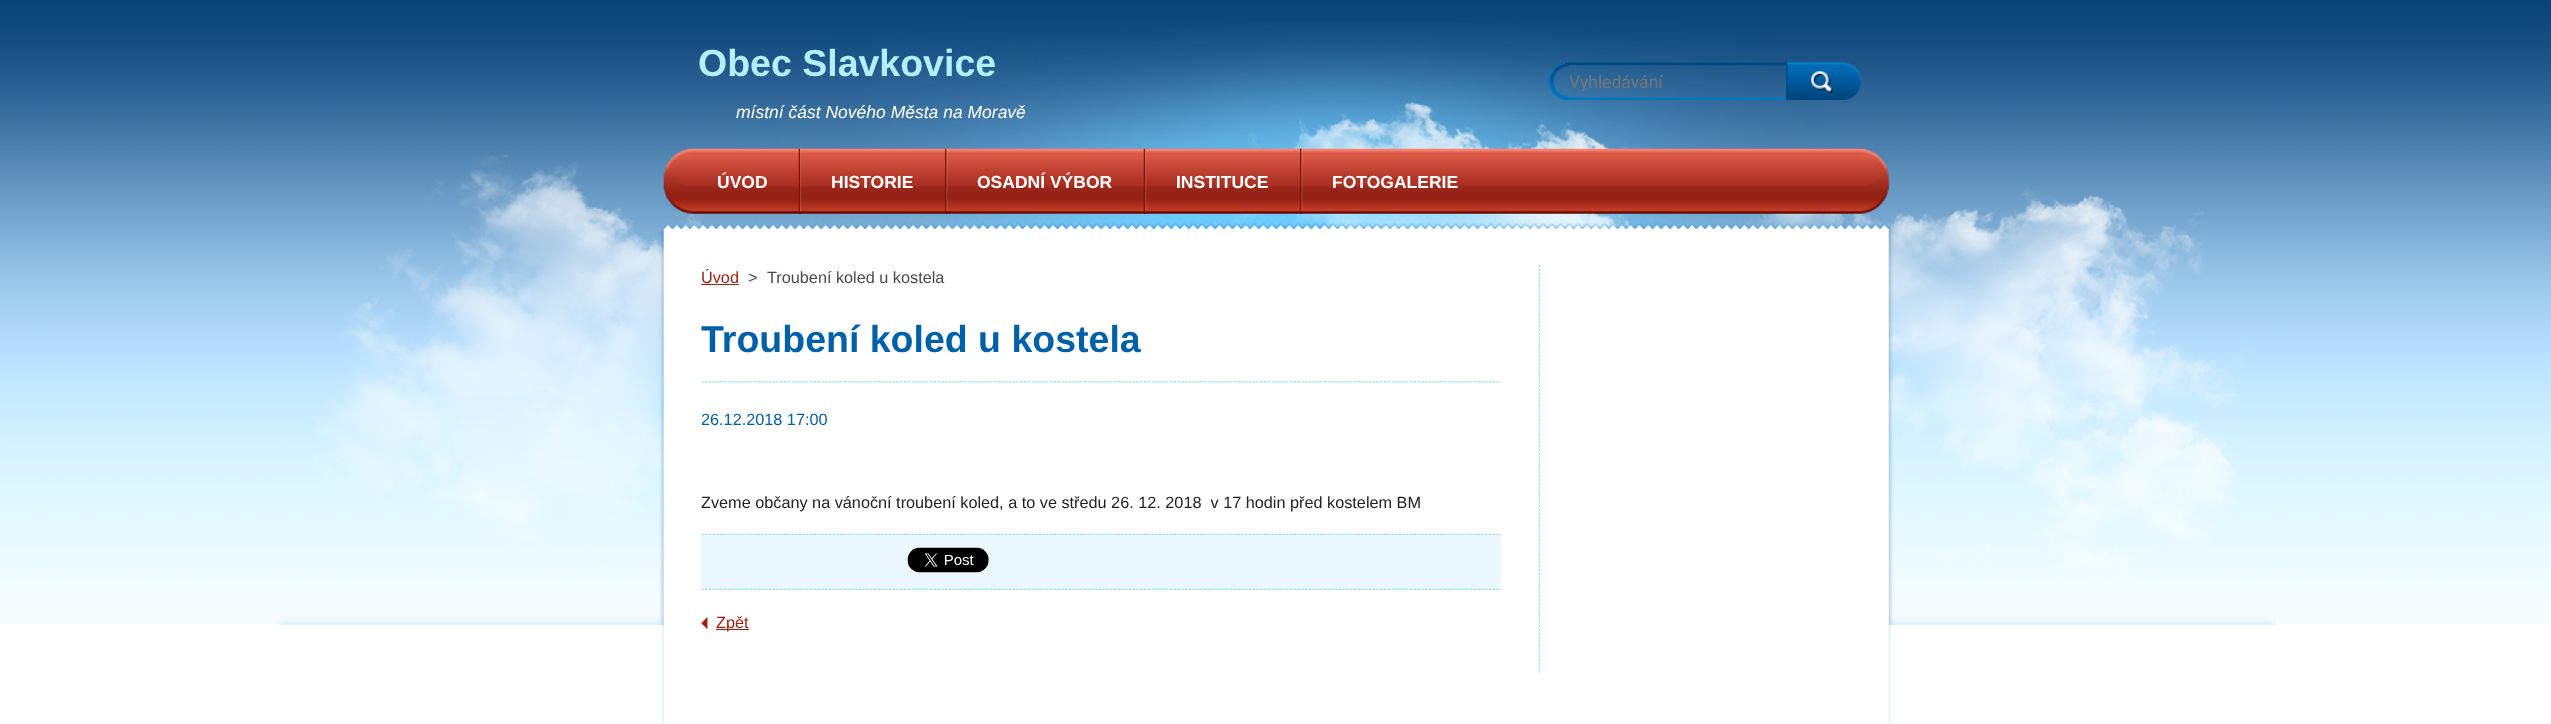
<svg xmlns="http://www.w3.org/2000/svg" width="2551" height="724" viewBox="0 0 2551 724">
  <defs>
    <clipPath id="clip1"><rect x="1570" y="71" width="206" height="20"/></clipPath>
  </defs>
  <rect width="100%" height="100%" fill="rgb(255,255,255)"/>
  <image x="0" y="0" width="2551" height="624" href="pic1.png"/>
  <image x="276" y="22" width="2001" height="603" href="pic2.png"/>
  <text x="698" y="76" font-family="Liberation Sans" font-size="37.5" font-weight="bold" fill="rgb(177,241,255)">Obec Slavkovice</text>
  <text x="736" y="118" font-family="Liberation Sans" font-size="17.5" font-style="italic" fill="rgb(255,255,255)">místní část Nového Města na Moravě</text>
  <image x="1548" y="62" width="240" height="38" href="pic3.png"/>
  <g clip-path="url(#clip1)">
    <text x="1569" y="88" font-family="Roboto" font-size="17.5" fill="rgb(117,117,117)">Vyhledávání</text>
  </g>
  <image x="1786" y="62" width="76" height="38" href="pic4.png"/>
  <image x="663" y="148" width="1226" height="66" href="pic5.png"/>
  <text x="717" y="188" font-family="Liberation Sans" font-size="17.5" font-weight="bold" fill="rgb(255,255,255)">ÚVOD</text>
  <image x="798" y="148" width="4" height="66" href="pic6.png"/>
  <text x="831" y="188" font-family="Liberation Sans" font-size="17.5" font-weight="bold" fill="rgb(255,255,255)">HISTORIE</text>
  <image x="945" y="148" width="3" height="66" href="pic7.png"/>
  <text x="977" y="188" font-family="Liberation Sans" font-size="17.5" font-weight="bold" fill="rgb(255,255,255)">OSADNÍ VÝBOR</text>
  <image x="1143" y="148" width="4" height="66" href="pic8.png"/>
  <text x="1176" y="188" font-family="Liberation Sans" font-size="17.5" font-weight="bold" fill="rgb(255,255,255)">INSTITUCE</text>
  <image x="1300" y="148" width="3" height="66" href="pic9.png"/>
  <text x="1332" y="188" font-family="Liberation Sans" font-size="17.5" font-weight="bold" fill="rgb(255,255,255)">FOTOGALERIE</text>
  <image x="661" y="625" width="1230" height="99" href="pic10.png"/>
  <image x="1538" y="265" width="2" height="409" href="pic11.png"/>
  <text x="701" y="283" font-family="Liberation Sans" font-size="16.25" fill="rgb(162,30,15)">Úvod</text>
  <rect x="701" y="284" width="38" height="1" fill="rgb(162,30,15)"/>
  <g font-family="Liberation Sans" font-size="16.25" fill="rgb(74,74,74)">
    <text x="748" y="283">&gt;</text>
    <text x="767" y="283">Troubení koled u kostela</text>
  </g>
  <image x="701" y="381" width="801" height="2" href="pic12.png"/>
  <text x="701" y="352" font-family="Liberation Sans" font-size="37.5" font-weight="bold" fill="rgb(0,96,169)">Troubení koled u kostela</text>
  <text x="701" y="425" font-family="Liberation Sans" font-size="16.25" fill="rgb(0,96,169)">26.12.2018 17:00</text>
  <text x="701" y="508" font-family="Liberation Sans" font-size="16.25" fill="rgb(34,34,34)" xml:space="preserve">Zveme občany na vánoční troubení koled, a to ve středu 26. 12. 2018  v 17 hodin před kostelem BM</text>
  <image x="701" y="533" width="801" height="2" href="pic13.png"/>
  <rect x="701" y="535" width="800" height="55" fill="rgb(235,248,255)"/>
  <image x="701" y="588" width="801" height="2" href="pic14.png"/>
  <image x="907" y="547" width="82" height="26" href="pic15.png"/>
  <image x="701" y="617" width="7" height="12" href="pic16.png"/>
  <rect x="716" y="629" width="33" height="1" fill="rgb(162,30,15)"/>
  <text x="716" y="628" font-family="Liberation Sans" font-size="16.25" fill="rgb(162,30,15)">Zpět</text>
</svg>
